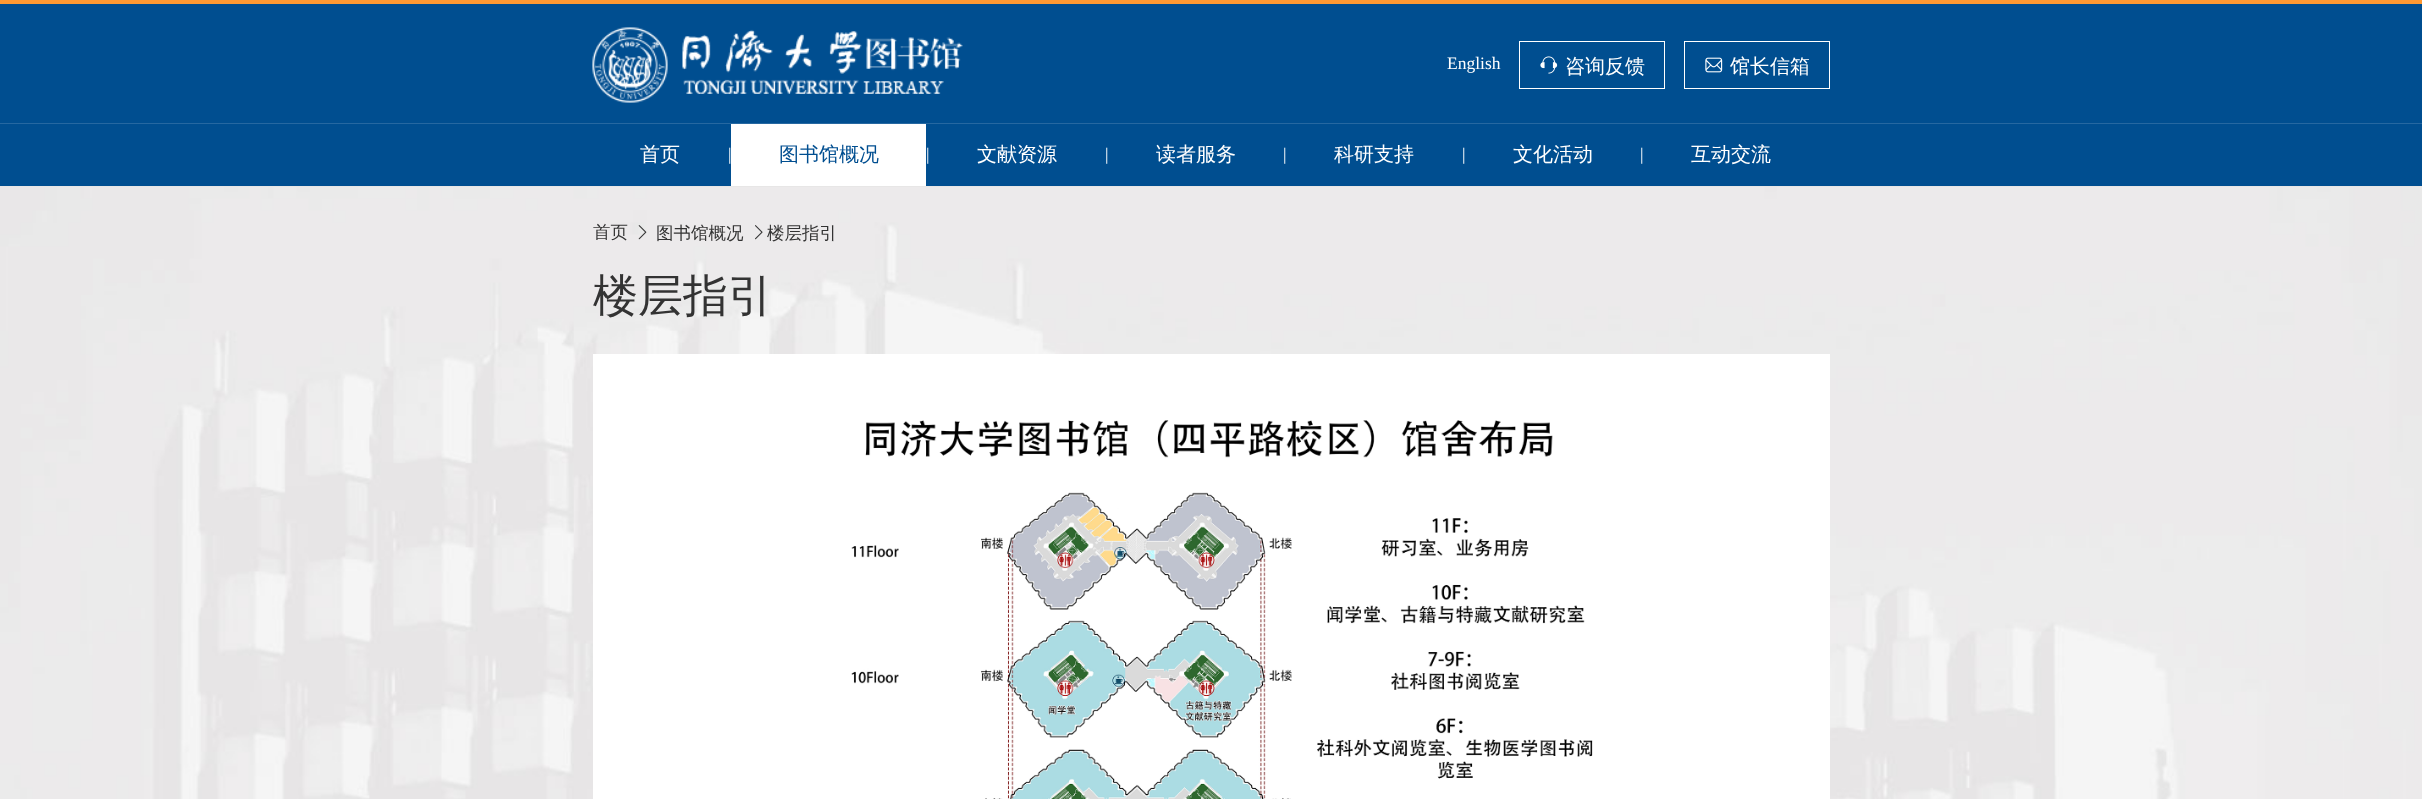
<svg xmlns="http://www.w3.org/2000/svg" width="2422" height="799" viewBox="0 0 2422 799">
  <rect width="100%" height="100%" fill="rgb(231,230,230)"/>
  <rect x="0" y="4" width="2422" height="182" fill="rgb(0,78,144)"/>
  <rect x="0" y="0" width="2422" height="4" fill="rgb(255,153,51)"/>
  <image x="592" y="27" width="371" height="76" href="pic1.png"/>
  <text x="1447" y="69" font-family="Liberation Serif" font-size="17.5" fill="rgb(255,255,255)">English</text>
  <rect x="1519.5" y="41.5" width="145" height="47" fill="none" stroke="rgb(255,255,255)"/>
  <image x="1540" y="56" width="18" height="18" href="pic2.png"/>
  <text x="1565" y="73" font-family="WenQuanYi Zen Hei" font-size="20" font-weight="500" fill="rgb(255,255,255)">咨询反馈</text>
  <rect x="1684.5" y="41.5" width="145" height="47" fill="none" stroke="rgb(255,255,255)"/>
  <image x="1705" y="57" width="18" height="16" href="pic3.png"/>
  <text x="1730" y="73" font-family="WenQuanYi Zen Hei" font-size="20" font-weight="500" fill="rgb(255,255,255)">馆长信箱</text>
  <rect x="0" y="123" width="2422" height="1" fill="rgb(38,104,161)"/>
  <text x="640" y="161" font-family="WenQuanYi Zen Hei" font-size="20" font-weight="500" fill="rgb(255,255,255)">首页</text>
  <text x="728" y="160" font-family="Liberation Serif" font-size="17.5" fill="rgb(255,255,255)">|</text>
  <rect x="731" y="124" width="195" height="62" fill="rgb(255,255,255)"/>
  <text x="779" y="161" font-family="WenQuanYi Zen Hei" font-size="20" font-weight="500" fill="rgb(0,78,144)">图书馆概况</text>
  <text x="926" y="160" font-family="Liberation Serif" font-size="17.5" fill="rgb(255,255,255)">|</text>
  <text x="977" y="161" font-family="WenQuanYi Zen Hei" font-size="20" font-weight="500" fill="rgb(255,255,255)">文献资源</text>
  <text x="1105" y="160" font-family="Liberation Serif" font-size="17.5" fill="rgb(255,255,255)">|</text>
  <text x="1156" y="161" font-family="WenQuanYi Zen Hei" font-size="20" font-weight="500" fill="rgb(255,255,255)">读者服务</text>
  <text x="1283" y="160" font-family="Liberation Serif" font-size="17.5" fill="rgb(255,255,255)">|</text>
  <text x="1334" y="161" font-family="WenQuanYi Zen Hei" font-size="20" font-weight="500" fill="rgb(255,255,255)">科研支持</text>
  <text x="1462" y="160" font-family="Liberation Serif" font-size="17.5" fill="rgb(255,255,255)">|</text>
  <text x="1513" y="161" font-family="WenQuanYi Zen Hei" font-size="20" font-weight="500" fill="rgb(255,255,255)">文化活动</text>
  <text x="1640" y="160" font-family="Liberation Serif" font-size="17.5" fill="rgb(255,255,255)">|</text>
  <text x="1691" y="161" font-family="WenQuanYi Zen Hei" font-size="20" font-weight="500" fill="rgb(255,255,255)">互动交流</text>
  <image x="0" y="187" width="2422" height="612" href="pic4.png"/>
  <text x="593" y="238" font-family="WenQuanYi Zen Hei" font-size="17.5" font-weight="500" fill="rgb(51,51,51)">首页</text>
  <image x="638" y="225" width="9" height="15" href="pic5.png"/>
  <text x="656" y="239" font-family="WenQuanYi Zen Hei" font-size="17.5" font-weight="500" fill="rgb(51,51,51)">图书馆概况</text>
  <image x="755" y="225" width="8" height="15" href="pic6.png"/>
  <text x="767" y="239" font-family="WenQuanYi Zen Hei" font-size="17.5" font-weight="500" fill="rgb(51,51,51)">楼层指引</text>
  <text x="593" y="311" font-family="WenQuanYi Zen Hei" font-size="45" font-weight="500" fill="rgb(51,51,51)">楼层指引</text>
  <rect x="593" y="354" width="1237" height="445" fill="rgb(255,255,255)"/>
  <image x="851" y="420" width="742" height="379" href="pic7.png"/>
</svg>
